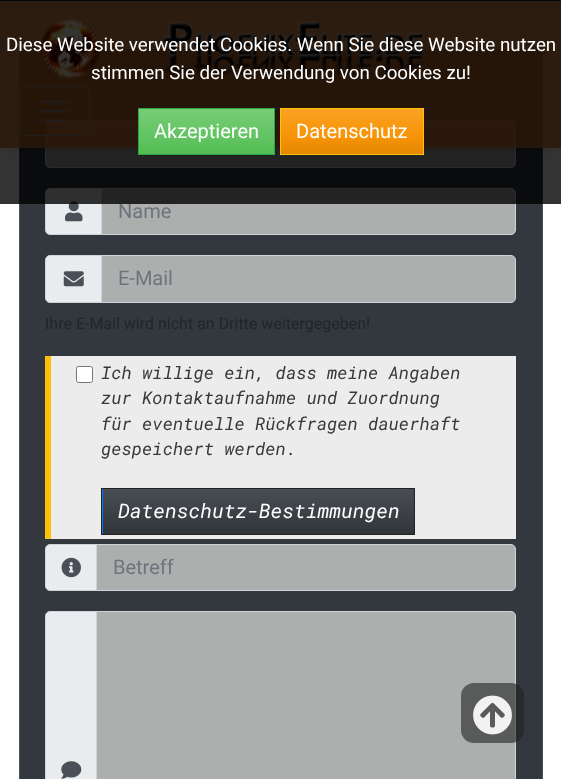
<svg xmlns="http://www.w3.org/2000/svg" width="561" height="779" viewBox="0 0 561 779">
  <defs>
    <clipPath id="clip1"><path d="M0 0H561V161H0ZM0 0H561V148H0Z" clip-rule="evenodd"/></clipPath>
    <linearGradient id="g1" gradientUnits="userSpaceOnUse" x1="206" y1="109" x2="206" y2="154"><stop offset="0" stop-color="rgb(120,204,120)"/><stop offset="0.6" stop-color="rgb(98,196,98)"/><stop offset="1" stop-color="rgb(83,190,83)"/></linearGradient>
    <linearGradient id="g2" gradientUnits="userSpaceOnUse" x1="352" y1="109" x2="352" y2="154"><stop offset="0" stop-color="rgb(250,161,35)"/><stop offset="0.6" stop-color="rgb(248,148,6)"/><stop offset="1" stop-color="rgb(228,136,6)"/></linearGradient>
    <linearGradient id="g3" gradientUnits="userSpaceOnUse" x1="258" y1="489" x2="258" y2="534"><stop offset="0" stop-color="rgb(72,78,85)"/><stop offset="0.6" stop-color="rgb(58,63,68)"/><stop offset="1" stop-color="rgb(49,53,57)"/></linearGradient>
  </defs>
  <rect width="100%" height="100%" fill="rgb(255,255,255)"/>
  <rect x="19.5" y="49.5" width="523" height="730" fill="rgb(50,56,62)" stroke="rgb(77,82,87)"/>
  <rect x="45.5" y="120.5" width="470" height="47" rx="4.5" fill="rgb(173,175,174)" stroke="rgb(206,212,218)"/>
  <path d="M500 140.5L505 145.5L510 140.5" fill="none" stroke="rgb(73,80,87)" stroke-width="2.5"/>
  <g clip-path="url(#clip1)">
    <rect x="0" y="0" width="561" height="148" fill="rgba(0,0,0,0.15)" filter="blur(4px)"/>
  </g>
  <rect x="0" y="1" width="561" height="147" fill="rgba(214,112,38,0.83)"/>
  <rect x="0" y="0" width="561" height="1" fill="rgb(33,37,41)"/>
  <rect x="0" y="146" width="561" height="1" fill="rgba(255,255,255,0.12)"/>
  <image x="38" y="17" width="386" height="63" href="pic1.png"/>
  <rect x="20.5" y="86.5" width="69" height="49" rx="4.5" fill="none" stroke="rgb(153,153,153)"/>
  <path d="M41 102H69M41 111H69M41 120.5H69" fill="none" stroke="rgba(153,153,153,0.7)" stroke-width="2.3" stroke-linecap="round"/>
  <path d="M50 188.5H102.5V234.5H50C47.5 234.5 45.5 232.5 45.5 230V193C45.5 190.5 47.5 188.5 50 188.5Z" fill="rgb(233,236,239)" stroke="rgb(206,212,218)"/>
  <image x="65" y="201" width="18" height="21" href="pic2.png"/>
  <path d="M101.5 188.5H511C513.5 188.5 515.5 190.5 515.5 193V230C515.5 232.5 513.5 234.5 511 234.5H101.5Z" fill="rgb(173,175,174)" stroke="rgb(206,212,218)"/>
  <text x="118" y="218" font-family="Roboto" font-size="20" fill="rgb(108,117,125)">Name</text>
  <rect x="0" y="0" width="561" height="204" fill="rgba(0,0,0,0.8)"/>
  <g font-family="Roboto" font-size="18.75" fill="rgb(255,255,255)">
    <text x="6" y="51">Diese Website verwendet Cookies. Wenn Sie diese Website nutzen</text>
    <text x="91" y="79">stimmen Sie der Verwendung von Cookies zu!</text>
  </g>
  <rect x="138" y="108" width="137" height="47" fill="rgb(40,167,69)"/>
  <rect x="139" y="109" width="135" height="45" fill="url(#g1)"/>
  <text x="154" y="138" font-family="Roboto" font-size="20" fill="rgb(255,255,255)">Akzeptieren</text>
  <rect x="280" y="108" width="144" height="47" fill="rgb(255,193,7)"/>
  <rect x="281" y="109" width="142" height="45" fill="url(#g2)"/>
  <text x="296" y="138" font-family="Roboto" font-size="20" fill="rgb(255,255,255)">Datenschutz</text>
  <path d="M50 255.5H102.5V302.5H50C47.5 302.5 45.5 300.5 45.5 298V260C45.5 257.5 47.5 255.5 50 255.5Z" fill="rgb(233,236,239)" stroke="rgb(206,212,218)"/>
  <image x="63" y="271" width="21" height="16" href="pic3.png"/>
  <path d="M101.5 255.5H511C513.5 255.5 515.5 257.5 515.5 260V298C515.5 300.5 513.5 302.5 511 302.5H101.5Z" fill="rgb(173,175,174)" stroke="rgb(206,212,218)"/>
  <text x="118" y="285" font-family="Roboto" font-size="20" fill="rgb(108,117,125)">E-Mail</text>
  <text x="45" y="329" font-family="Roboto" font-size="16" fill="rgb(33,37,41)">Ihre E-Mail wird nicht an Dritte weitergegeben!</text>
  <rect x="51" y="356" width="465" height="183" fill="rgb(236,236,236)"/>
  <rect x="45" y="356" width="6" height="183" fill="rgb(255,193,7)"/>
  <rect x="76.5" y="366.5" width="16" height="16" rx="2" fill="rgb(255,255,255)" stroke="rgb(118,118,118)"/>
  <g font-family="Roboto Mono" font-size="17.5" font-style="italic" fill="rgb(56,56,56)">
    <text>
      <tspan x="101" y="379">Ich willige ein, dass meine Angaben</tspan>
      <tspan x="101" y="404">zur Kontaktaufnahme und Zuordnung</tspan>
      <tspan x="101" y="430">für eventuelle Rückfragen dauerhaft</tspan>
      <tspan x="101" y="455">gespeichert werden.</tspan>
    </text>
  </g>
  <rect x="102" y="489" width="1" height="45" fill="rgb(0,123,255)"/>
  <rect x="103" y="489" width="311" height="45" fill="url(#g3)"/>
  <rect x="101.5" y="488.5" width="313" height="46" fill="none" stroke="rgb(36,33,33)"/>
  <text x="118" y="518" font-family="Roboto Mono" font-size="20" font-style="italic" fill="rgb(255,255,255)">Datenschutz-Bestimmungen</text>
  <path d="M50 544.5H97.5V590.5H50C47.5 590.5 45.5 588.5 45.5 586V549C45.5 546.5 47.5 544.5 50 544.5Z" fill="rgb(233,236,239)" stroke="rgb(206,212,218)"/>
  <image x="61" y="557" width="20" height="21" href="pic4.png"/>
  <path d="M96.5 544.5H511C513.5 544.5 515.5 546.5 515.5 549V586C515.5 588.5 513.5 590.5 511 590.5H96.5Z" fill="rgb(173,175,174)" stroke="rgb(206,212,218)"/>
  <text x="113" y="574" font-family="Roboto" font-size="20" fill="rgb(108,117,125)">Betreff</text>
  <path d="M50 611.5H97.5V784.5H50C47.5 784.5 45.5 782.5 45.5 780V616C45.5 613.5 47.5 611.5 50 611.5Z" fill="rgb(233,236,239)" stroke="rgb(206,212,218)"/>
  <image x="61" y="761" width="21" height="18" href="pic5.png"/>
  <path d="M96.5 611.5H511C513.5 611.5 515.5 613.5 515.5 616V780C515.5 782.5 513.5 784.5 511 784.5H96.5Z" fill="rgb(173,175,174)" stroke="rgb(206,212,218)"/>
  <rect x="461" y="683" width="63" height="60" rx="13" fill="rgba(34,34,34,0.6)"/>
  <image x="473" y="695" width="39" height="40" href="pic6.png"/>
</svg>
